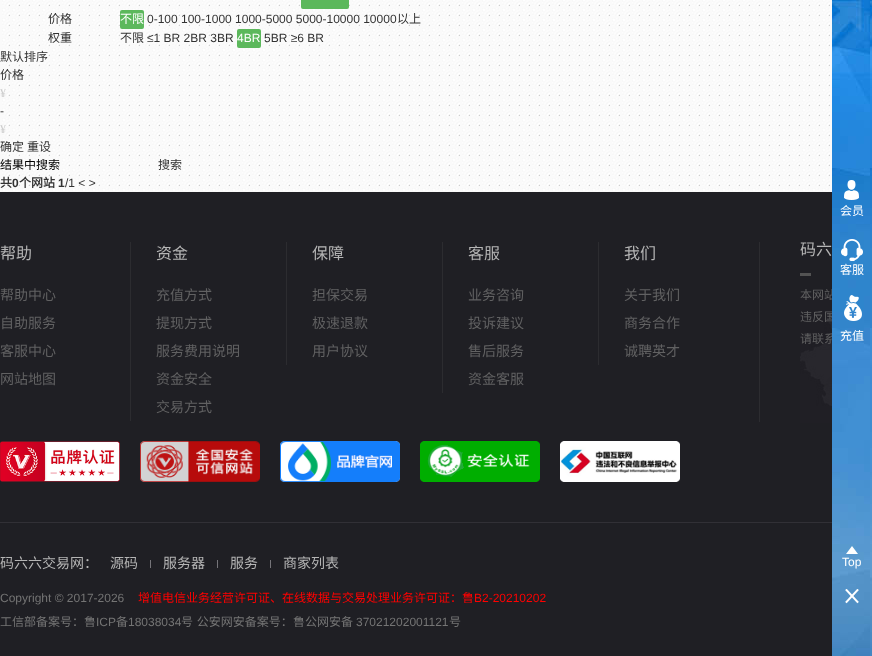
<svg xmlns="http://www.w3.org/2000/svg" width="872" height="656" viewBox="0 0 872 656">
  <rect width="100%" height="100%" fill="rgb(255,255,255)"/>
  <image x="0" y="0" width="832" height="192" href="pic1.png"/>
  <rect x="301" y="-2" width="48" height="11" rx="2" fill="rgb(92,184,92)"/>
  <text x="48" y="23" font-family="Noto Sans CJK SC" font-size="12" fill="rgb(51,51,51)">价格</text>
  <rect x="120" y="10" width="24" height="19" rx="2" fill="rgb(92,184,92)"/>
  <text x="120" y="23" font-family="Noto Sans CJK SC" font-size="12" fill="rgb(255,255,255)">不限</text>
  <text x="147" y="23" font-family="Liberation Sans" font-size="12" fill="rgb(51,51,51)">0-100 100-1000 1000-5000 5000-10000 10000</text>
  <g font-family="Noto Sans CJK SC" font-size="12" fill="rgb(51,51,51)">
    <text x="397" y="23">以上</text>
    <text x="48" y="42">权重</text>
    <text x="120" y="42">不限</text>
  </g>
  <text x="147" y="42" font-family="Liberation Sans" font-size="12" fill="rgb(51,51,51)">≤1 BR 2BR 3BR</text>
  <rect x="237" y="29" width="24" height="19" rx="2" fill="rgb(92,184,92)"/>
  <text x="237" y="42" font-family="Liberation Sans" font-size="12" fill="rgb(255,255,255)">4BR</text>
  <text x="264" y="42" font-family="Liberation Sans" font-size="12" fill="rgb(51,51,51)">5BR ≥6 BR</text>
  <g font-family="Noto Sans CJK SC" font-size="12" fill="rgb(51,51,51)">
    <text>
      <tspan x="0" y="61">默认排序</tspan>
      <tspan x="0" y="79">价格</tspan>
    </text>
  </g>
  <text x="0" y="97" font-family="Liberation Serif" font-size="12" fill="rgb(204,204,204)">¥</text>
  <text x="0" y="115" font-family="Liberation Sans" font-size="12" fill="rgb(51,51,51)">-</text>
  <text x="0" y="133" font-family="Liberation Serif" font-size="12" fill="rgb(204,204,204)">¥</text>
  <g font-family="Noto Sans CJK SC" font-size="12" fill="rgb(51,51,51)">
    <text x="0" y="151">确定</text>
    <text x="27" y="151">重设</text>
  </g>
  <text x="0" y="169" font-family="Noto Sans CJK SC" font-size="12" fill="rgb(0,0,0)">结果中搜索</text>
  <text x="158" y="169" font-family="Noto Sans CJK SC" font-size="12" fill="rgb(51,51,51)">搜索</text>
  <text x="0" y="187" font-family="Noto Sans CJK SC" font-size="12" font-weight="bold" fill="rgb(51,51,51)">共</text>
  <text x="12" y="187" font-family="Liberation Sans" font-size="12" font-weight="bold" fill="rgb(51,51,51)">0</text>
  <text x="19" y="187" font-family="Noto Sans CJK SC" font-size="12" font-weight="bold" fill="rgb(51,51,51)">个网站</text>
  <text x="58" y="187" font-family="Liberation Sans" font-size="12" font-weight="bold" fill="rgb(51,51,51)">1</text>
  <text x="65" y="187" font-family="Liberation Sans" font-size="12" fill="rgb(51,51,51)">/1 &lt; &gt;</text>
  <rect x="0" y="192" width="832" height="464" fill="rgb(31,31,36)"/>
  <rect x="0" y="522" width="832" height="1" fill="rgb(49,48,54)"/>
  <text x="0" y="259" font-family="Noto Sans CJK SC" font-size="16" fill="rgb(181,181,181)">帮助</text>
  <g font-family="Noto Sans CJK SC" font-size="14" fill="rgb(97,97,98)">
    <text x="0" y="300">帮助中心</text>
    <text x="0" y="328">自助服务</text>
    <text x="0" y="356">客服中心</text>
    <text x="0" y="384">网站地图</text>
  </g>
  <rect x="130" y="242" width="1" height="179" fill="rgb(44,44,48)"/>
  <text x="156" y="259" font-family="Noto Sans CJK SC" font-size="16" fill="rgb(181,181,181)">资金</text>
  <g font-family="Noto Sans CJK SC" font-size="14" fill="rgb(97,97,98)">
    <text x="156" y="300">充值方式</text>
    <text x="156" y="328">提现方式</text>
    <text x="156" y="356">服务费用说明</text>
    <text x="156" y="384">资金安全</text>
    <text x="156" y="412">交易方式</text>
  </g>
  <rect x="286" y="242" width="1" height="123" fill="rgb(44,44,48)"/>
  <text x="312" y="259" font-family="Noto Sans CJK SC" font-size="16" fill="rgb(181,181,181)">保障</text>
  <g font-family="Noto Sans CJK SC" font-size="14" fill="rgb(97,97,98)">
    <text x="312" y="300">担保交易</text>
    <text x="312" y="328">极速退款</text>
    <text x="312" y="356">用户协议</text>
  </g>
  <rect x="442" y="242" width="1" height="151" fill="rgb(44,44,48)"/>
  <text x="468" y="259" font-family="Noto Sans CJK SC" font-size="16" fill="rgb(181,181,181)">客服</text>
  <g font-family="Noto Sans CJK SC" font-size="14" fill="rgb(97,97,98)">
    <text x="468" y="300">业务咨询</text>
    <text x="468" y="328">投诉建议</text>
    <text x="468" y="356">售后服务</text>
    <text x="468" y="384">资金客服</text>
  </g>
  <rect x="598" y="242" width="1" height="123" fill="rgb(44,44,48)"/>
  <text x="624" y="259" font-family="Noto Sans CJK SC" font-size="16" fill="rgb(181,181,181)">我们</text>
  <g font-family="Noto Sans CJK SC" font-size="14" fill="rgb(97,97,98)">
    <text x="624" y="300">关于我们</text>
    <text x="624" y="328">商务合作</text>
    <text x="624" y="356">诚聘英才</text>
  </g>
  <image x="0" y="441" width="120" height="41" href="pic2.png"/>
  <image x="140" y="441" width="120" height="41" href="pic3.png"/>
  <image x="280" y="441" width="120" height="41" href="pic4.png"/>
  <image x="420" y="441" width="120" height="41" href="pic5.png"/>
  <image x="560" y="441" width="120" height="41" href="pic6.png"/>
  <rect x="759" y="242" width="1" height="180" fill="rgb(44,44,48)"/>
  <image x="800" y="294" width="32" height="129" href="pic7.png"/>
  <rect x="800" y="273" width="11" height="3" fill="rgb(83,83,83)"/>
  <text x="800" y="255" font-family="Noto Sans CJK SC" font-size="16" fill="rgb(181,181,181)">码六</text>
  <g font-family="Noto Sans CJK SC" font-size="12" fill="rgb(97,97,98)">
    <text>
      <tspan x="800" y="299" word-spacing="1">本网站</tspan>
      <tspan x="800" y="321">违反国</tspan>
      <tspan x="800" y="343">请联系</tspan>
    </text>
  </g>
  <text x="0" y="568" font-family="Noto Sans CJK SC" font-size="14" fill="rgb(181,181,181)">码六六交易网：</text>
  <rect x="150" y="560" width="1" height="8" fill="rgb(117,116,121)"/>
  <text x="110" y="568" font-family="Noto Sans CJK SC" font-size="14" fill="rgb(181,181,181)">源码</text>
  <rect x="217" y="560" width="1" height="8" fill="rgb(117,116,121)"/>
  <text x="163" y="568" font-family="Noto Sans CJK SC" font-size="14" fill="rgb(181,181,181)">服务器</text>
  <rect x="270" y="560" width="1" height="8" fill="rgb(117,116,121)"/>
  <g font-family="Noto Sans CJK SC" font-size="14" fill="rgb(181,181,181)">
    <text x="230" y="568">服务</text>
    <text x="283" y="568">商家列表</text>
  </g>
  <text x="0" y="602" font-family="Liberation Sans" font-size="12" fill="rgb(116,116,116)">Copyright © 2017-2026</text>
  <text x="138" y="602" font-family="Noto Sans CJK SC" font-size="12" fill="rgb(255,0,0)">增值电信业务经营许可证、在线数据与交易处理业务许可证：鲁</text>
  <text x="474" y="602" font-family="Liberation Sans" font-size="12" fill="rgb(255,0,0)">B2-20210202</text>
  <text x="0" y="626" font-family="Noto Sans CJK SC" font-size="12" fill="rgb(116,116,116)">工信部备案号：鲁</text>
  <text x="96" y="626" font-family="Liberation Sans" font-size="12" fill="rgb(116,116,116)">ICP</text>
  <text x="116" y="626" font-family="Noto Sans CJK SC" font-size="12" fill="rgb(116,116,116)">备</text>
  <text x="128" y="626" font-family="Liberation Sans" font-size="12" fill="rgb(116,116,116)">18038034</text>
  <g font-family="Noto Sans CJK SC" font-size="12" fill="rgb(116,116,116)">
    <text x="181" y="626" word-spacing="1">号 公安网安备案号：</text>
    <text x="293" y="626">鲁公网安备</text>
  </g>
  <text x="356" y="626" font-family="Liberation Sans" font-size="12" fill="rgb(116,116,116)">37021202001121</text>
  <text x="449" y="626" font-family="Noto Sans CJK SC" font-size="12" fill="rgb(116,116,116)">号</text>
  <image x="832" y="0" width="40" height="656" href="pic8.png"/>
  <image x="844" y="180" width="15" height="20" href="pic9.png"/>
  <text x="840" y="215" font-family="Noto Sans CJK SC" font-size="12" fill="rgb(255,255,255)">会员</text>
  <image x="841" y="239" width="22" height="22" href="pic10.png"/>
  <text x="840" y="274" font-family="Noto Sans CJK SC" font-size="12" fill="rgb(255,255,255)">客服</text>
  <image x="844" y="295" width="18" height="26" href="pic11.png"/>
  <text x="840" y="340" font-family="Noto Sans CJK SC" font-size="12" fill="rgb(255,255,255)">充值</text>
  <image x="846" y="546" width="12" height="8" href="pic12.png"/>
  <text x="842" y="566" font-family="Liberation Sans" font-size="12" fill="rgb(255,255,255)">Top</text>
  <image x="845" y="589" width="14" height="15" href="pic13.png"/>
</svg>
